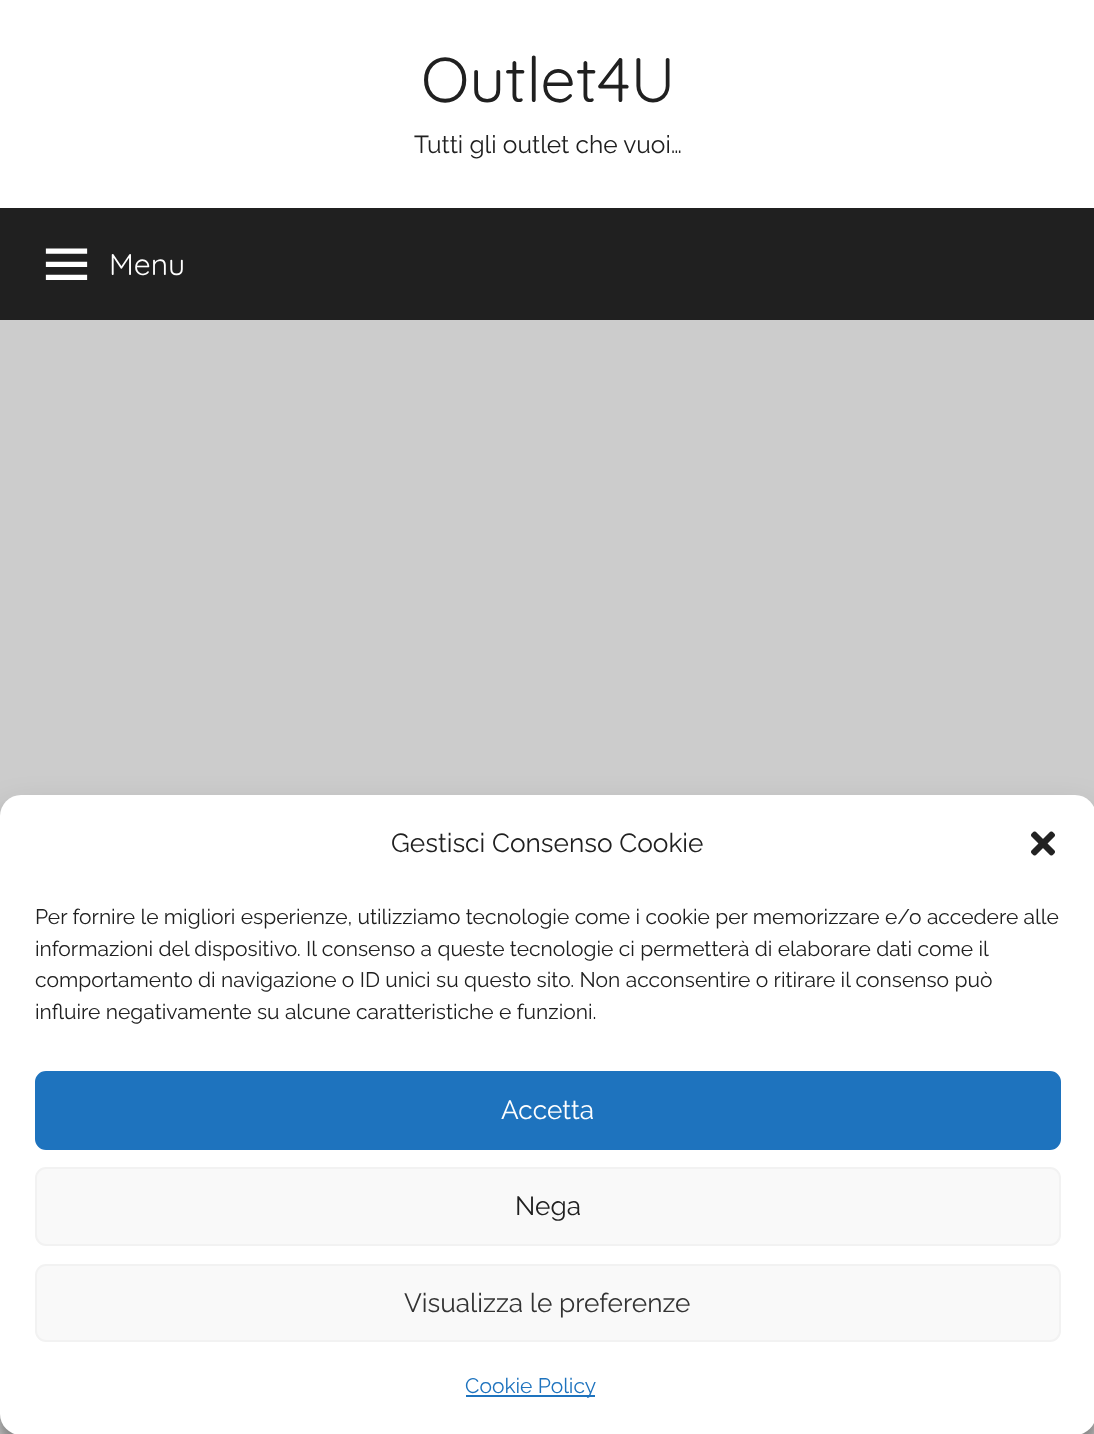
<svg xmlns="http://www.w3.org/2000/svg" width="1094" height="1434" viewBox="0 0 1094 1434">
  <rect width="100%" height="100%" fill="rgb(204,204,204)"/>
  <rect x="0" y="0" width="1094" height="208" fill="rgb(255,255,255)"/>
  <text x="421" y="102" font-family="Quicksand" font-size="63" fill="rgb(32,32,32)">Outlet4U</text>
  <text x="414" y="153" font-family="Raleway" font-size="24.5" fill="rgb(32,32,32)">Tutti gli outlet che vuoi…</text>
  <rect x="0" y="208" width="1094" height="112" fill="rgb(32,32,32)"/>
  <image x="45" y="248" width="43" height="32" href="pic1.png"/>
  <text x="109" y="275" font-family="Quicksand" font-size="30" fill="rgb(255,255,255)">Menu</text>
  <rect x="0" y="805" width="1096" height="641" rx="21" fill="rgba(0,0,0,0.23)" filter="blur(5px)"/>
  <rect x="0" y="812" width="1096" height="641" rx="21" fill="rgba(0,0,0,0.19)" filter="blur(17.5px)"/>
  <rect x="0" y="795" width="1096" height="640" rx="21" fill="rgb(255,255,255)"/>
  <text x="391" y="852" font-family="Raleway" font-size="26.25" fill="rgb(32,32,32)">Gestisci Consenso Cookie</text>
  <image x="1031" y="831" width="24" height="25" href="pic2.png"/>
  <g font-family="Raleway" font-size="21" fill="rgb(32,32,32)">
    <text>
      <tspan x="35" y="924">Per fornire le migliori esperienze, utilizziamo tecnologie come i cookie per memorizzare e/o accedere alle</tspan>
      <tspan x="35" y="956">informazioni del dispositivo. Il consenso a queste tecnologie ci permetterà di elaborare dati come il</tspan>
      <tspan x="35" y="987">comportamento di navigazione o ID unici su questo sito. Non acconsentire o ritirare il consenso può</tspan>
      <tspan x="35" y="1019">influire negativamente su alcune caratteristiche e funzioni.</tspan>
    </text>
  </g>
  <rect x="36" y="1072" width="1024" height="77" rx="10" fill="rgb(30,115,190)" stroke="rgb(30,115,190)" stroke-width="2"/>
  <text x="501" y="1119" font-family="Raleway" font-size="26.25" fill="rgb(255,255,255)">Accetta</text>
  <rect x="36" y="1168" width="1024" height="77" rx="10" fill="rgb(249,249,249)" stroke="rgb(242,242,242)" stroke-width="2"/>
  <text x="515" y="1215" font-family="Raleway" font-size="26.25" fill="rgb(32,32,32)">Nega</text>
  <rect x="36" y="1265" width="1024" height="76" rx="10" fill="rgb(249,249,249)" stroke="rgb(242,242,242)" stroke-width="2"/>
  <text x="404" y="1312" font-family="Raleway" font-size="26.25" fill="rgb(51,51,51)">Visualizza le preferenze</text>
  <rect x="466" y="1395" width="129" height="2" fill="rgb(30,115,190)"/>
  <text x="465" y="1393" font-family="Raleway" font-size="21" fill="rgb(30,115,190)">Cookie Policy</text>
</svg>
